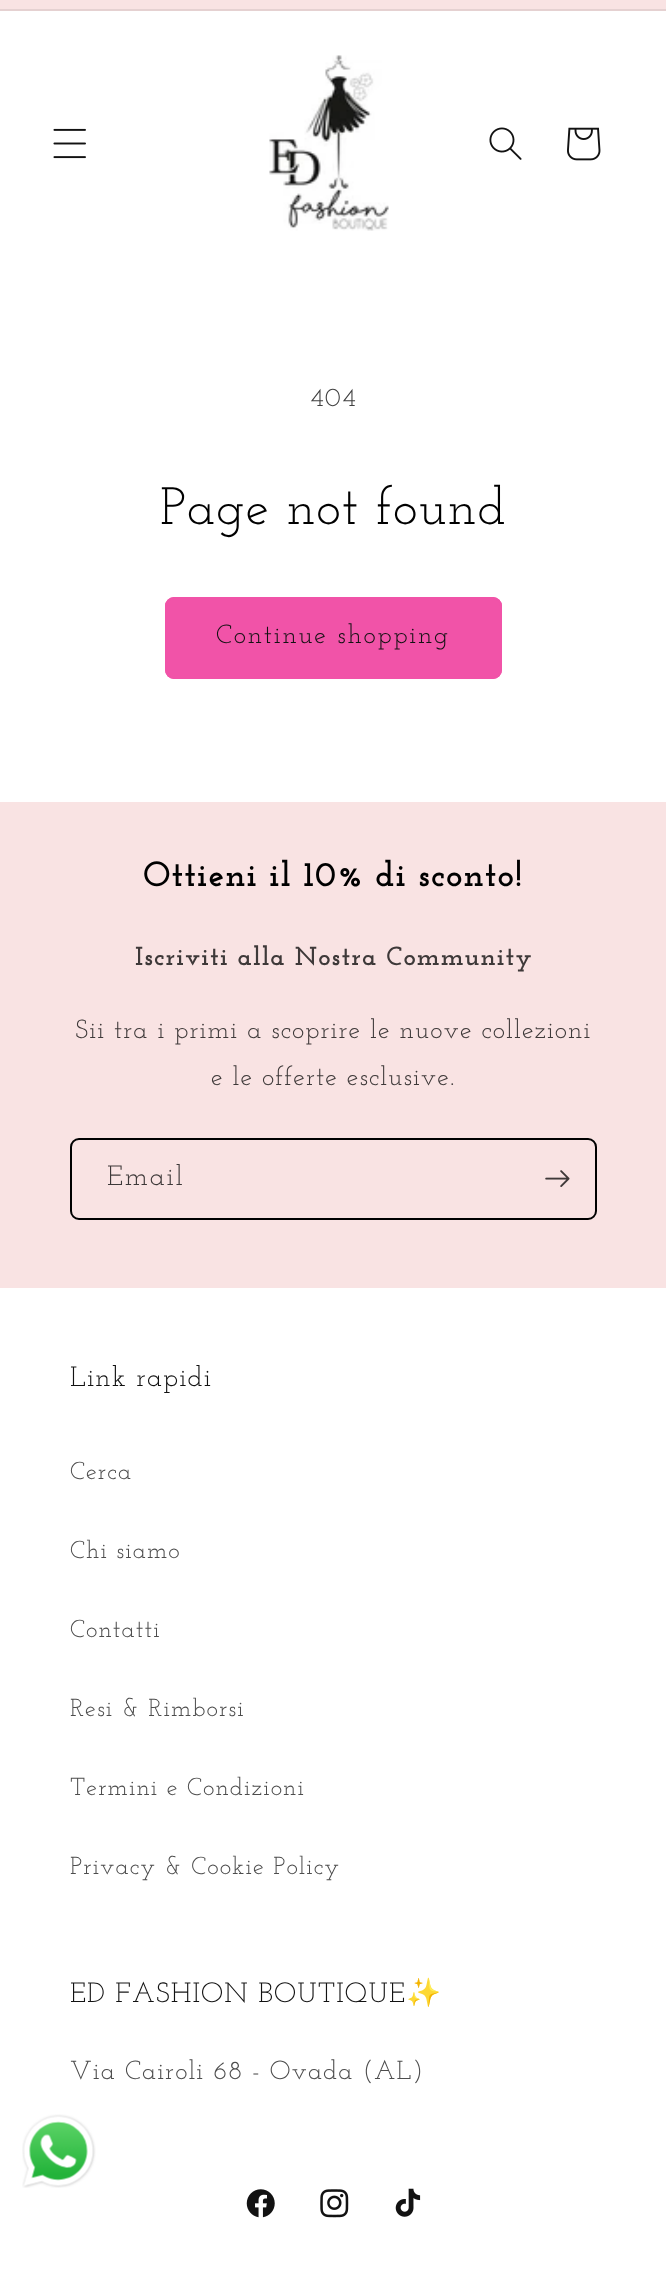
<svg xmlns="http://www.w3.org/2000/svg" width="666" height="2274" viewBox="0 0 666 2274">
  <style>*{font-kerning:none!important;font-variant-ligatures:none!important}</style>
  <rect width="100%" height="100%" fill="rgb(255,255,255)"/>
  <rect x="0" y="0" width="666" height="9" fill="rgb(249,227,227)"/>
  <rect x="0" y="9" width="666" height="2" fill="rgb(229,209,209)"/>
  <image x="53" y="128" width="33" height="31" href="pic1.png"/>
  <image x="269" y="55" width="120" height="176" href="pic2.png"/>
  <image x="489" y="127" width="33" height="33" href="pic3.png"/>
  <image x="567" y="127" width="34" height="34" href="pic4.png"/>
  <text x="310" y="406" font-family="Josefin Slab" font-size="26.25" letter-spacing="1.05" fill="rgb(64,64,64)">404</text>
  <text x="160" y="524" font-family="Josefin Slab" font-size="52.5" letter-spacing="1.05" fill="rgb(0,0,0)">Page not found</text>
  <rect x="165" y="597" width="337" height="82" rx="9" fill="rgb(241,83,168)"/>
  <rect x="166" y="598" width="335" height="80" rx="8" fill="none" stroke="rgb(241,83,168)" stroke-width="2"/>
  <text x="216" y="643" font-family="Josefin Slab" font-size="26.25" letter-spacing="1.75" fill="rgb(18,18,18)">Continue shopping</text>
  <rect x="0" y="802" width="666" height="486" fill="rgb(249,227,227)"/>
  <text x="143" y="886" font-family="Josefin Slab" font-size="35" font-weight="bold" letter-spacing="1.05" fill="rgb(0,0,0)">Ottieni il 10% di sconto!</text>
  <text x="135" y="965" font-family="Josefin Slab" font-size="26.25" font-weight="bold" letter-spacing="1.05" fill="rgb(62,57,57)">Iscriviti alla Nostra Community</text>
  <g font-family="Josefin Slab" font-size="26.25" letter-spacing="1.05" fill="rgb(62,57,57)">
    <text x="75" y="1038">Sii tra i primi a scoprire le nuove collezioni</text>
    <text x="211" y="1085">e le offerte esclusive.</text>
  </g>
  <rect x="71" y="1139" width="525" height="80" rx="8" fill="none" stroke="rgb(0,0,0)" stroke-width="2"/>
  <text x="107" y="1185" font-family="Josefin Slab" font-size="28" letter-spacing="1.75" fill="rgb(62,57,57)">Email</text>
  <image x="545" y="1170" width="25" height="17" href="pic5.png"/>
  <text x="70" y="1386" font-family="Josefin Slab" font-size="28" letter-spacing="1.05" fill="rgb(18,18,18)">Link rapidi</text>
  <g font-family="Josefin Slab" font-size="24.5" letter-spacing="1.05" fill="rgb(77,77,77)">
    <text x="70" y="1479">Cerca</text>
    <text x="70" y="1558">Chi siamo</text>
    <text x="70" y="1637">Contatti</text>
    <text x="70" y="1716">Resi &amp; Rimborsi</text>
    <text x="70" y="1795">Termini e Condizioni</text>
    <text x="70" y="1874">Privacy &amp; Cookie Policy</text>
  </g>
  <text x="70" y="2002" font-family="Josefin Slab" font-size="28" letter-spacing="1.05" fill="rgb(18,18,18)">ED FASHION BOUTIQUE</text>
  <text x="406" y="2002" font-family="Noto Color Emoji" font-size="28" letter-spacing="1.05" fill="rgb(18,18,18)">✨</text>
  <text x="70" y="2079" font-family="Josefin Slab" font-size="26.25" letter-spacing="1.05" fill="rgb(77,77,77)">Via Cairoli 68 - Ovada (AL)</text>
  <image x="246" y="2189" width="29" height="29" href="pic6.png"/>
  <image x="320" y="2189" width="29" height="29" href="pic7.png"/>
  <image x="395" y="2188" width="26" height="29" href="pic8.png"/>
  <image x="22" y="2114" width="74" height="74" href="pic9.png"/>
</svg>
